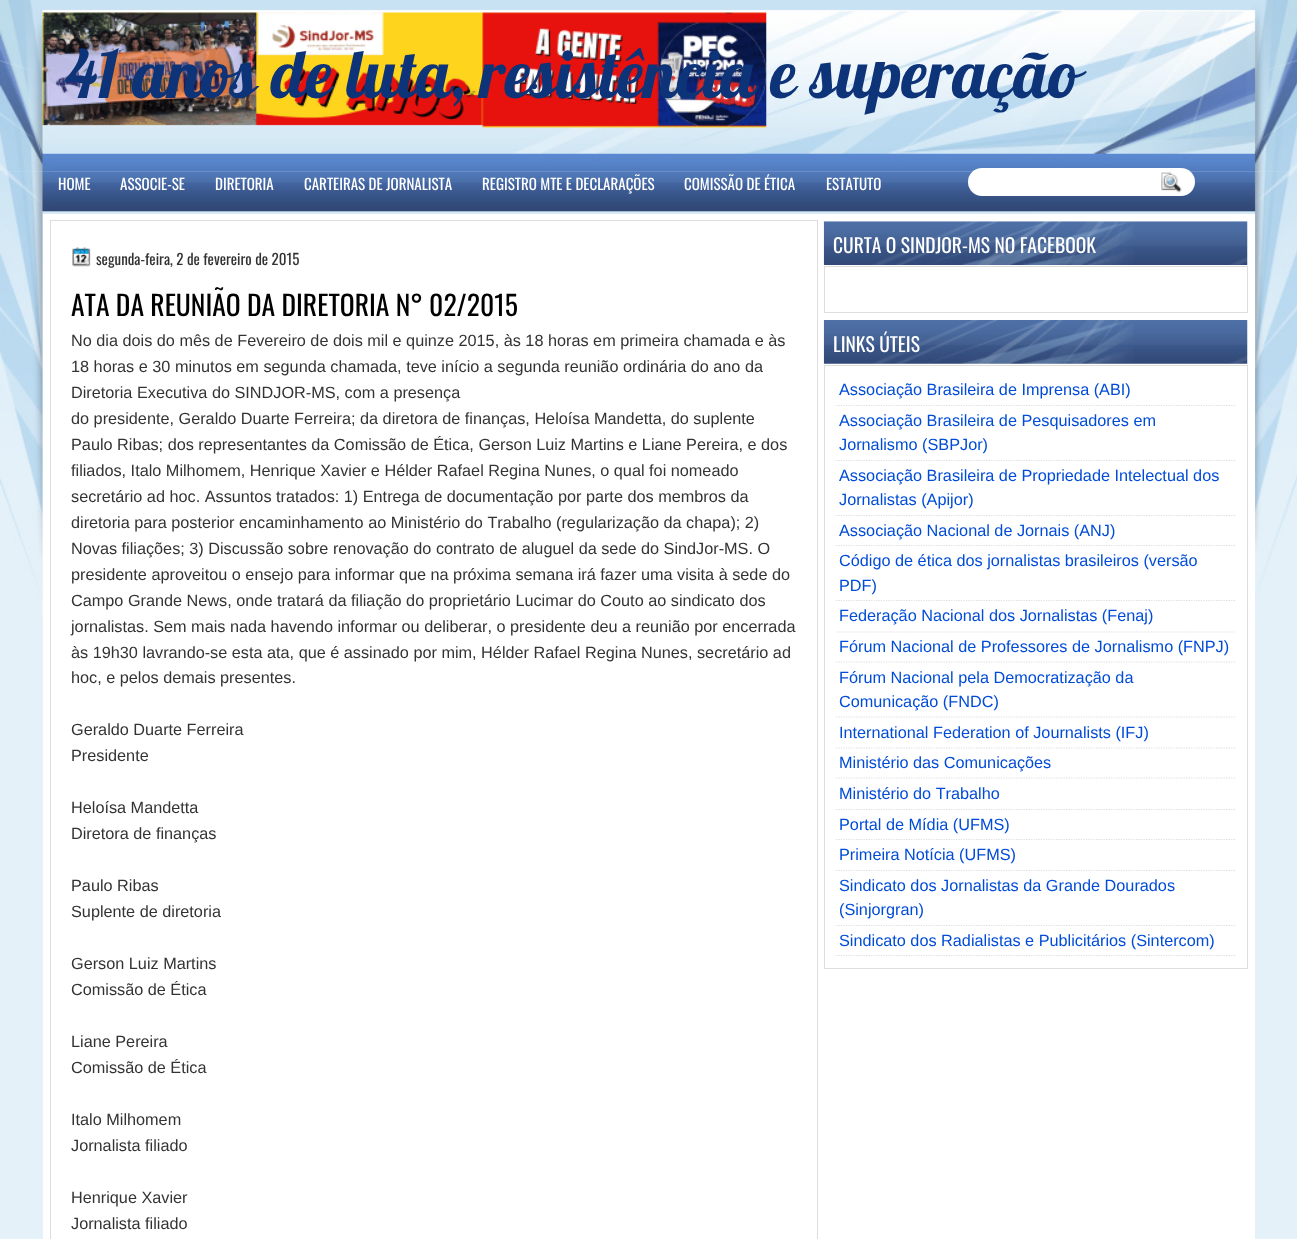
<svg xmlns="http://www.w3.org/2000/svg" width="1297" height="1239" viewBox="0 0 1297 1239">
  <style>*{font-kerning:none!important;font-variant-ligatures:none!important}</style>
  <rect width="100%" height="100%" fill="rgb(228,241,249)"/>
  <image x="0" y="171" width="1297" height="1" href="pic1.png"/>
  <image x="0" y="0" width="1297" height="172" href="pic2.png"/>
  <image x="0" y="171" width="1297" height="450" href="pic3.png"/>
  <image x="42" y="12" width="725" height="116" href="pic4.png"/>
  <text x="65" y="98" font-family="Lobster" font-size="67" fill="rgb(13,51,120)">41 anos de luta,</text>
  <text x="480" y="98" font-family="Lobster" font-size="67" fill="rgb(13,51,120)">resistência e superação</text>
  <g font-family="Oswald" font-size="15" fill="rgb(255,255,255)">
    <text x="58" y="190">HOME</text>
    <text x="120" y="190">ASSOCIE-SE</text>
    <text x="215" y="190">DIRETORIA</text>
    <text x="304" y="190">CARTEIRAS DE JORNALISTA</text>
    <text x="482" y="190">REGISTRO MTE E DECLARAÇÕES</text>
    <text x="684" y="190">COMISSÃO DE ÉTICA</text>
    <text x="826" y="190">ESTATUTO</text>
  </g>
  <rect x="968" y="168" width="227" height="28" rx="14" fill="rgb(255,255,255)"/>
  <image x="1161" y="172" width="21" height="21" href="pic5.png"/>
  <rect x="43" y="214" width="1212" height="1025" fill="rgb(255,255,255)"/>
  <rect x="50.5" y="220.5" width="767" height="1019" fill="none" stroke="rgb(221,221,221)"/>
  <image x="72" y="247" width="19" height="20" href="pic6.png"/>
  <text x="96" y="265" font-family="Oswald" font-size="15" fill="rgb(51,51,51)">segunda-feira, 2 de fevereiro de 2015</text>
  <text x="71" y="316" font-family="Oswald" font-size="27.6" fill="rgb(0,0,0)">ATA DA REUNIÃO DA DIRETORIA N° 02/2015</text>
  <g font-family="Liberation Sans" font-size="16.25" fill="rgb(51,51,51)">
    <text>
      <tspan x="71" y="346">No dia dois do mês de Fevereiro de dois mil e quinze 2015, às 18 horas em primeira chamada e às</tspan>
      <tspan x="71" y="372">18 horas e 30 minutos em segunda chamada, teve início a segunda reunião ordinária do ano da</tspan>
      <tspan x="71" y="398">Diretoria Executiva do SINDJOR-MS, com a presença</tspan>
      <tspan x="71" y="424">do presidente, Geraldo Duarte Ferreira; da diretora de finanças, Heloísa Mandetta, do suplente</tspan>
      <tspan x="71" y="450">Paulo Ribas; dos representantes da Comissão de Ética, Gerson Luiz Martins e Liane Pereira, e dos</tspan>
      <tspan x="71" y="476">filiados, Italo Milhomem, Henrique Xavier e Hélder Rafael Regina Nunes, o qual foi nomeado</tspan>
      <tspan x="71" y="502">secretário ad hoc. Assuntos tratados: 1) Entrega de documentação por parte dos membros da</tspan>
      <tspan x="71" y="528">diretoria para posterior encaminhamento ao Ministério do Trabalho (regularização da chapa); 2)</tspan>
      <tspan x="71" y="554">Novas filiações; 3) Discussão sobre renovação do contrato de aluguel da sede do SindJor-MS. O</tspan>
      <tspan x="71" y="580">presidente aproveitou o ensejo para informar que na próxima semana irá fazer uma visita à sede do</tspan>
      <tspan x="71" y="606">Campo Grande News, onde tratará da filiação do proprietário Lucimar do Couto ao sindicato dos</tspan>
      <tspan x="71" y="632">jornalistas. Sem mais nada havendo informar ou deliberar, o presidente deu a reunião por encerrada</tspan>
      <tspan x="71" y="658">às 19h30 lavrando-se esta ata, que é assinado por mim, Hélder Rafael Regina Nunes, secretário ad</tspan>
      <tspan x="71" y="683">hoc, e pelos demais presentes.</tspan>
    </text>
    <text>
      <tspan x="71" y="735">Geraldo Duarte Ferreira</tspan>
      <tspan x="71" y="761">Presidente</tspan>
    </text>
    <text>
      <tspan x="71" y="813">Heloísa Mandetta</tspan>
      <tspan x="71" y="839">Diretora de finanças</tspan>
    </text>
    <text>
      <tspan x="71" y="891">Paulo Ribas</tspan>
      <tspan x="71" y="917">Suplente de diretoria</tspan>
    </text>
    <text>
      <tspan x="71" y="969">Gerson Luiz Martins</tspan>
      <tspan x="71" y="995">Comissão de Ética</tspan>
    </text>
    <text>
      <tspan x="71" y="1047">Liane Pereira</tspan>
      <tspan x="71" y="1073">Comissão de Ética</tspan>
    </text>
    <text>
      <tspan x="71" y="1125">Italo Milhomem</tspan>
      <tspan x="71" y="1151">Jornalista filiado</tspan>
    </text>
    <text>
      <tspan x="71" y="1203">Henrique Xavier</tspan>
      <tspan x="71" y="1229">Jornalista filiado</tspan>
    </text>
  </g>
  <image x="823" y="221" width="425" height="44" href="pic7.png"/>
  <text x="833" y="253" font-family="Oswald" font-size="19.5" fill="rgb(255,255,255)">CURTA O SINDJOR-MS NO FACEBOOK</text>
  <rect x="824.5" y="266.5" width="423" height="46" fill="none" stroke="rgb(221,221,221)"/>
  <image x="823" y="320" width="425" height="44" href="pic8.png"/>
  <text x="833" y="352" font-family="Oswald" font-size="19.5" fill="rgb(255,255,255)">LINKS ÚTEIS</text>
  <rect x="824.5" y="365.5" width="423" height="603" fill="none" stroke="rgb(221,221,221)"/>
  <path d="M836 405.5H1235" fill="none" stroke="rgb(221,221,221)" stroke-width="1.2" stroke-dasharray="1.25 1.25"/>
  <text x="839" y="395" font-family="Liberation Sans" font-size="16.25" fill="rgb(0,76,216)">Associação Brasileira de Imprensa (ABI)</text>
  <path d="M836 460.5H1235" fill="none" stroke="rgb(221,221,221)" stroke-width="1.2" stroke-dasharray="1.25 1.25"/>
  <g font-family="Liberation Sans" font-size="16.25" fill="rgb(0,76,216)">
    <text>
      <tspan x="839" y="426">Associação Brasileira de Pesquisadores em</tspan>
      <tspan x="839" y="450">Jornalismo (SBPJor)</tspan>
    </text>
  </g>
  <path d="M836 515.5H1235" fill="none" stroke="rgb(221,221,221)" stroke-width="1.2" stroke-dasharray="1.25 1.25"/>
  <g font-family="Liberation Sans" font-size="16.25" fill="rgb(0,76,216)">
    <text>
      <tspan x="839" y="481">Associação Brasileira de Propriedade Intelectual dos</tspan>
      <tspan x="839" y="505">Jornalistas (Apijor)</tspan>
    </text>
  </g>
  <path d="M836 545.5H1235" fill="none" stroke="rgb(221,221,221)" stroke-width="1.2" stroke-dasharray="1.25 1.25"/>
  <text x="839" y="536" font-family="Liberation Sans" font-size="16.25" fill="rgb(0,76,216)">Associação Nacional de Jornais (ANJ)</text>
  <path d="M836 600.5H1235" fill="none" stroke="rgb(221,221,221)" stroke-width="1.2" stroke-dasharray="1.25 1.25"/>
  <g font-family="Liberation Sans" font-size="16.25" fill="rgb(0,76,216)">
    <text>
      <tspan x="839" y="566">Código de ética dos jornalistas brasileiros (versão</tspan>
      <tspan x="839" y="591">PDF)</tspan>
    </text>
  </g>
  <path d="M836 632H1235" fill="none" stroke="rgb(221,221,221)" stroke-width="1.2" stroke-dasharray="1.25 1.25"/>
  <text x="839" y="621" font-family="Liberation Sans" font-size="16.25" fill="rgb(0,76,216)">Federação Nacional dos Jornalistas (Fenaj)</text>
  <path d="M836 662H1235" fill="none" stroke="rgb(221,221,221)" stroke-width="1.2" stroke-dasharray="1.25 1.25"/>
  <text x="839" y="652" font-family="Liberation Sans" font-size="16.25" fill="rgb(0,76,216)">Fórum Nacional de Professores de Jornalismo (FNPJ)</text>
  <path d="M836 717H1235" fill="none" stroke="rgb(221,221,221)" stroke-width="1.2" stroke-dasharray="1.25 1.25"/>
  <g font-family="Liberation Sans" font-size="16.25" fill="rgb(0,76,216)">
    <text>
      <tspan x="839" y="683">Fórum Nacional pela Democratização da</tspan>
      <tspan x="839" y="707">Comunicação (FNDC)</tspan>
    </text>
  </g>
  <path d="M836 748H1235" fill="none" stroke="rgb(221,221,221)" stroke-width="1.2" stroke-dasharray="1.25 1.25"/>
  <text x="839" y="738" font-family="Liberation Sans" font-size="16.25" fill="rgb(0,76,216)">International Federation of Journalists (IFJ)</text>
  <path d="M836 778H1235" fill="none" stroke="rgb(221,221,221)" stroke-width="1.2" stroke-dasharray="1.25 1.25"/>
  <text x="839" y="768" font-family="Liberation Sans" font-size="16.25" fill="rgb(0,76,216)">Ministério das Comunicações</text>
  <path d="M836 809.5H1235" fill="none" stroke="rgb(221,221,221)" stroke-width="1.2" stroke-dasharray="1.25 1.25"/>
  <text x="839" y="799" font-family="Liberation Sans" font-size="16.25" fill="rgb(0,76,216)">Ministério do Trabalho</text>
  <path d="M836 839.5H1235" fill="none" stroke="rgb(221,221,221)" stroke-width="1.2" stroke-dasharray="1.25 1.25"/>
  <text x="839" y="830" font-family="Liberation Sans" font-size="16.25" fill="rgb(0,76,216)">Portal de Mídia (UFMS)</text>
  <path d="M836 870.5H1235" fill="none" stroke="rgb(221,221,221)" stroke-width="1.2" stroke-dasharray="1.25 1.25"/>
  <text x="839" y="860" font-family="Liberation Sans" font-size="16.25" fill="rgb(0,76,216)">Primeira Notícia (UFMS)</text>
  <path d="M836 925.5H1235" fill="none" stroke="rgb(221,221,221)" stroke-width="1.2" stroke-dasharray="1.25 1.25"/>
  <g font-family="Liberation Sans" font-size="16.25" fill="rgb(0,76,216)">
    <text>
      <tspan x="839" y="891">Sindicato dos Jornalistas da Grande Dourados</tspan>
      <tspan x="839" y="915">(Sinjorgran)</tspan>
    </text>
  </g>
  <path d="M836 955.5H1235" fill="none" stroke="rgb(221,221,221)" stroke-width="1.2" stroke-dasharray="1.25 1.25"/>
  <text x="839" y="946" font-family="Liberation Sans" font-size="16.25" fill="rgb(0,76,216)">Sindicato dos Radialistas e Publicitários (Sintercom)</text>
</svg>
